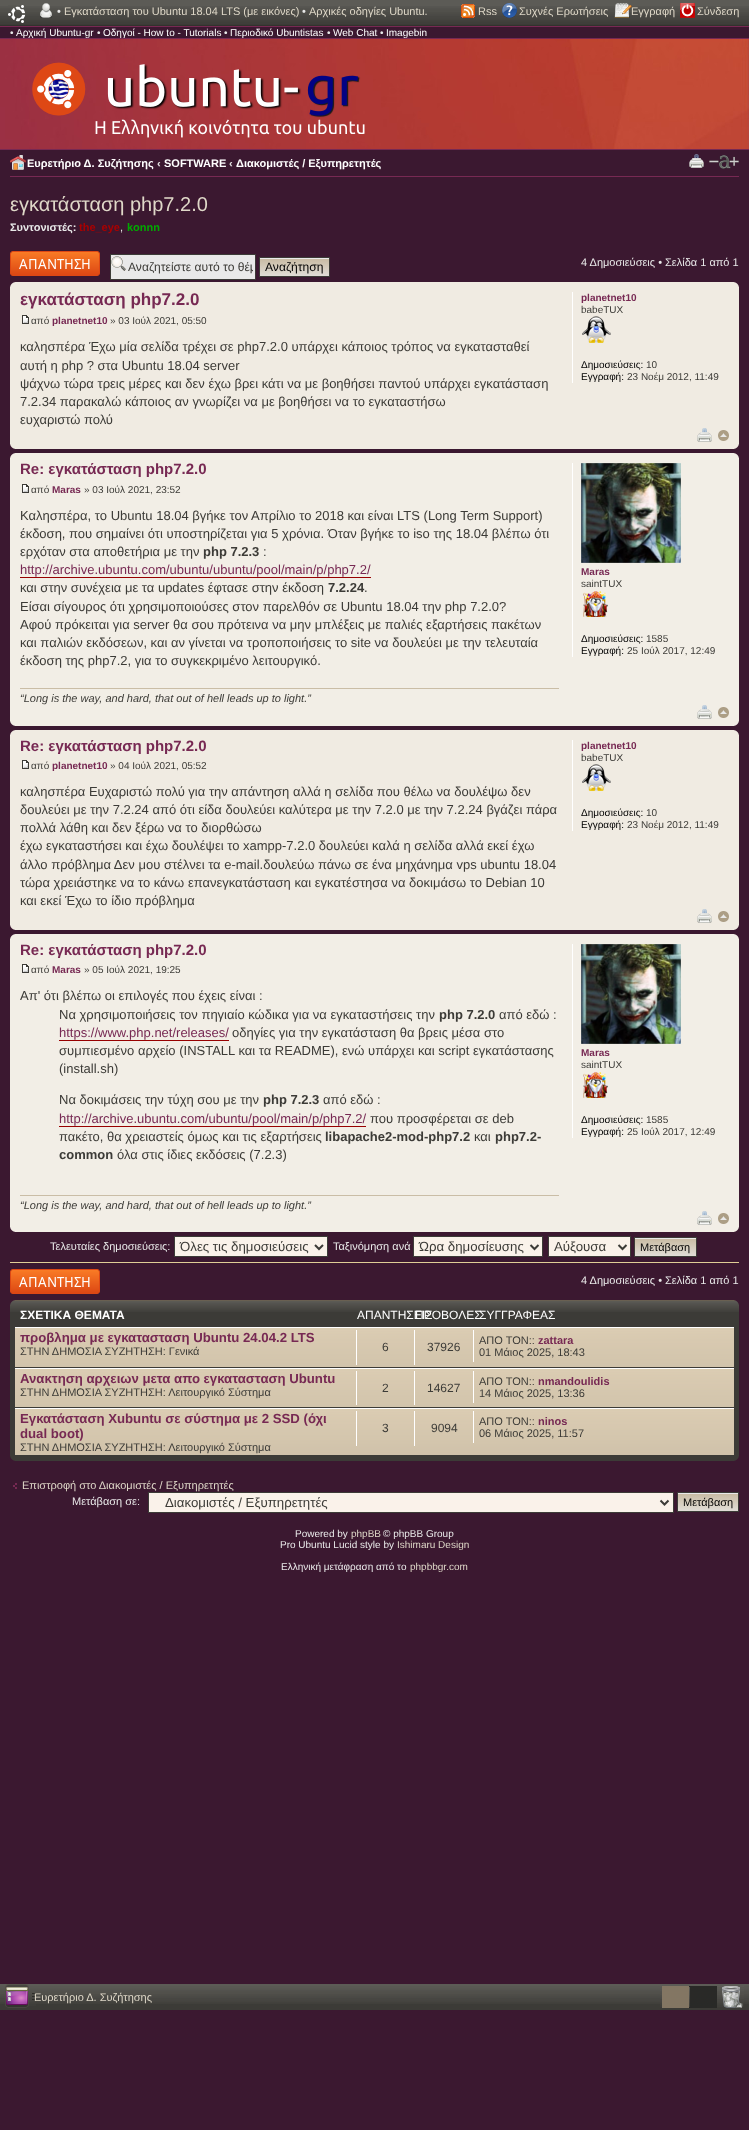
<svg xmlns="http://www.w3.org/2000/svg" width="749" height="2130" viewBox="0 0 749 2130">
  <defs>
    <clipPath id="clip1"><rect x="128" y="260" width="125" height="14"/></clipPath>
  </defs>
  <rect width="100%" height="100%" fill="rgb(59,24,48)"/>
  <rect x="0" y="0" width="749" height="6" fill="rgb(92,91,86)"/>
  <image x="0" y="6" width="749" height="20" href="pic1.png"/>
  <image x="8" y="5" width="18" height="18" href="pic2.png"/>
  <image x="40" y="3" width="12" height="15" href="pic3.png"/>
  <text x="57" y="15" font-family="Liberation Sans" font-size="11" fill="rgb(233,233,233)">•</text>
  <text x="64" y="15" font-family="Liberation Sans" font-size="11" fill="rgb(223,216,200)">Εγκατάσταση του Ubuntu 18.04 LTS (με εικόνες)</text>
  <text x="302" y="15" font-family="Liberation Sans" font-size="11" fill="rgb(233,233,233)">•</text>
  <text x="309" y="15" font-family="Liberation Sans" font-size="11" fill="rgb(223,216,200)">Αρχικές οδηγίες Ubuntu.</text>
  <image x="461" y="4" width="14" height="14" href="pic4.png"/>
  <text x="478" y="15" font-family="Liberation Sans" font-size="11" fill="rgb(223,216,200)">Rss</text>
  <image x="502" y="3" width="15" height="15" href="pic5.png"/>
  <text x="519" y="15" font-family="Liberation Sans" font-size="11" fill="rgb(223,216,200)">Συχνές Ερωτήσεις</text>
  <image x="614" y="3" width="18" height="15" href="pic6.png"/>
  <text x="631" y="15" font-family="Liberation Sans" font-size="11" fill="rgb(223,216,200)">Εγγραφή</text>
  <image x="680" y="3" width="15" height="15" href="pic7.png"/>
  <text x="697" y="15" font-family="Liberation Sans" font-size="11" fill="rgb(223,216,200)">Σύνδεση</text>
  <rect x="0" y="26" width="749" height="1" fill="rgb(119,41,83)"/>
  <text x="10" y="36" font-family="Liberation Sans" font-size="10" fill="rgb(233,233,233)">•</text>
  <rect x="0" y="38" width="749" height="1" fill="rgb(119,41,83)"/>
  <text x="16" y="36" font-family="Liberation Sans" font-size="10" fill="rgb(255,255,255)">Αρχική Ubuntu-gr</text>
  <text x="97" y="36" font-family="Liberation Sans" font-size="10" fill="rgb(233,233,233)">•</text>
  <text x="103" y="36" font-family="Liberation Sans" font-size="10" fill="rgb(255,255,255)">Οδηγοί - How to - Tutorials</text>
  <text x="224" y="36" font-family="Liberation Sans" font-size="10" fill="rgb(233,233,233)">•</text>
  <text x="230" y="36" font-family="Liberation Sans" font-size="10" fill="rgb(255,255,255)">Περιοδικό Ubuntistas</text>
  <text x="327" y="36" font-family="Liberation Sans" font-size="10" fill="rgb(233,233,233)">•</text>
  <text x="333" y="36" font-family="Liberation Sans" font-size="10" fill="rgb(255,255,255)">Web Chat</text>
  <text x="380" y="36" font-family="Liberation Sans" font-size="10" fill="rgb(233,233,233)">•</text>
  <text x="386" y="36" font-family="Liberation Sans" font-size="10" fill="rgb(255,255,255)">Imagebin</text>
  <image x="0" y="39" width="749" height="110" href="pic8.png"/>
  <image x="32" y="62" width="333" height="76" href="pic9.png"/>
  <rect x="0" y="149" width="749" height="1" fill="rgb(119,41,83)"/>
  <rect x="10" y="176" width="729" height="1" fill="rgb(119,41,83)"/>
  <image x="10" y="155" width="16" height="15" href="pic10.png"/>
  <text x="27" y="167" font-family="Liberation Sans" font-size="11" font-weight="bold" fill="rgb(255,255,255)">Ευρετήριο Δ. Συζήτησης</text>
  <text x="157" y="167" font-family="Liberation Sans" font-size="11" font-weight="bold" fill="rgb(233,233,233)">‹</text>
  <text x="164" y="167" font-family="Liberation Sans" font-size="11" font-weight="bold" fill="rgb(255,255,255)">SOFTWARE</text>
  <text x="229" y="167" font-family="Liberation Sans" font-size="11" font-weight="bold" fill="rgb(233,233,233)">‹</text>
  <text x="236" y="167" font-family="Liberation Sans" font-size="11" font-weight="bold" fill="rgb(255,255,255)">Διακομιστές / Εξυπηρετητές</text>
  <image x="689" y="154" width="15" height="14" href="pic11.png"/>
  <image x="709" y="155" width="30" height="14" href="pic12.png"/>
  <text x="10" y="211" font-family="Liberation Sans" font-size="20" fill="rgb(223,216,200)">εγκατάσταση php7.2.0</text>
  <text x="10" y="231" font-family="Liberation Sans" font-size="11" font-weight="bold" fill="rgb(233,233,233)">Συντονιστές:</text>
  <text x="79" y="231" font-family="Liberation Sans" font-size="11" font-weight="bold" fill="rgb(170,0,0)">the_eye</text>
  <text x="120" y="231" font-family="Liberation Sans" font-size="11" fill="rgb(233,233,233)">,</text>
  <text x="127" y="231" font-family="Liberation Sans" font-size="11" font-weight="bold" fill="rgb(0,170,0)">konnn</text>
  <image x="10" y="251" width="90" height="25" href="pic13.png"/>
  <rect x="111" y="255" width="144" height="24" fill="rgb(233,233,233)"/>
  <image x="111" y="256" width="15" height="15" href="pic14.png"/>
  <rect x="110.5" y="254.5" width="145" height="25" fill="none" stroke="rgb(60,59,55)"/>
  <g clip-path="url(#clip1)">
    <text x="128" y="271" font-family="Liberation Sans" font-size="12.1" fill="rgb(60,59,55)">Αναζητείστε αυτό το θέμ</text>
  </g>
  <rect x="260" y="258" width="69" height="1" fill="rgb(233,233,233)"/>
  <image x="260" y="259" width="69" height="17" href="pic15.png"/>
  <rect x="259.5" y="257.5" width="70" height="19" fill="none" stroke="rgb(60,59,55)"/>
  <text x="265" y="271" font-family="Liberation Sans" font-size="12.1" fill="rgb(0,0,0)">Αναζήτηση</text>
  <text x="581" y="266" font-family="Liberation Sans" font-size="11" fill="rgb(233,233,233)">4 Δημοσιεύσεις • Σελίδα 1 από 1</text>
  <rect x="10" y="282" width="729" height="167" fill="rgb(240,235,226)"/>
  <image x="10" y="282" width="6" height="5" href="pic16.png"/>
  <image x="733" y="282" width="6" height="5" href="pic17.png"/>
  <text x="20" y="305" font-family="Liberation Sans" font-size="17" font-weight="bold" fill="rgb(119,41,83)">εγκατάσταση php7.2.0</text>
  <image x="22" y="315" width="7" height="9" href="pic18.png"/>
  <text x="31" y="324" font-family="Liberation Sans" font-size="10" fill="rgb(60,59,55)">από</text>
  <text x="52" y="324" font-family="Liberation Sans" font-size="10" font-weight="bold" fill="rgb(119,41,83)">planetnet10</text>
  <text x="110" y="324" font-family="Liberation Sans" font-size="10" fill="rgb(60,59,55)">» 03 Ιούλ 2021, 05:50</text>
  <g font-family="Liberation Sans" font-size="13" fill="rgb(60,59,55)">
    <text>
      <tspan x="20" y="351">καλησπέρα Έχω μία σελίδα τρέχει σε php7.2.0 υπάρχει κάποιος τρόπος να εγκατασταθεί</tspan>
      <tspan x="20" y="370">αυτή η php ? στα Ubuntu 18.04 server</tspan>
      <tspan x="20" y="388">ψάχνω τώρα τρεις μέρες και δεν έχω βρει κάτι να με βοηθήσει παντού υπάρχει εγκατάσταση</tspan>
      <tspan x="20" y="406">7.2.34 παρακαλώ κάποιος αν γνωρίζει να με βοηθήσει να το εγκαταστήσω</tspan>
      <tspan x="20" y="424">ευχαριστώ πολύ</tspan>
    </text>
  </g>
  <rect x="572" y="292" width="1" height="91" fill="rgb(255,255,255)"/>
  <text x="581" y="301" font-family="Liberation Sans" font-size="10" font-weight="bold" fill="rgb(119,41,83)">planetnet10</text>
  <text x="581" y="313" font-family="Liberation Sans" font-size="10" fill="rgb(60,59,55)">babeTUX</text>
  <image x="582" y="316" width="29" height="27" href="pic19.png"/>
  <text x="581" y="368" font-family="Liberation Sans" font-size="10" fill="rgb(0,0,0)">Δημοσιεύσεις:</text>
  <text x="646" y="368" font-family="Liberation Sans" font-size="10" fill="rgb(60,59,55)">10</text>
  <text x="581" y="380" font-family="Liberation Sans" font-size="10" fill="rgb(0,0,0)">Εγγραφή:</text>
  <text x="627" y="380" font-family="Liberation Sans" font-size="10" fill="rgb(60,59,55)">23 Νοέμ 2012, 11:49</text>
  <image x="697" y="428" width="15" height="14" href="pic20.png"/>
  <image x="718" y="430" width="11" height="11" href="pic21.png"/>
  <image x="10" y="444" width="5" height="5" href="pic22.png"/>
  <image x="734" y="444" width="5" height="5" href="pic23.png"/>
  <rect x="10" y="453" width="729" height="273" fill="rgb(242,238,230)"/>
  <image x="10" y="453" width="6" height="5" href="pic24.png"/>
  <image x="733" y="453" width="6" height="5" href="pic25.png"/>
  <text x="20" y="474" font-family="Liberation Sans" font-size="15" font-weight="bold" fill="rgb(119,41,83)">Re: εγκατάσταση php7.2.0</text>
  <image x="22" y="484" width="7" height="9" href="pic26.png"/>
  <text x="31" y="493" font-family="Liberation Sans" font-size="10" fill="rgb(60,59,55)">από</text>
  <text x="52" y="493" font-family="Liberation Sans" font-size="10" font-weight="bold" fill="rgb(119,41,83)">Maras</text>
  <text x="84" y="493" font-family="Liberation Sans" font-size="10" fill="rgb(60,59,55)">» 03 Ιούλ 2021, 23:52</text>
  <g font-family="Liberation Sans" font-size="13" fill="rgb(60,59,55)">
    <text>
      <tspan x="20" y="520">Καλησπέρα, τo Ubuntu 18.04 βγήκε τον Απρίλιο το 2018 και είναι LTS (Long Term Support)</tspan>
      <tspan x="20" y="538">έκδοση, που σημαίνει ότι υποστηρίζεται για 5 χρόνια. Όταν βγήκε το iso της 18.04 βλέπω ότι</tspan>
      <tspan x="20" y="556">ερχόταν στα αποθετήρια με την</tspan>
    </text>
  </g>
  <text x="203" y="556" font-family="Liberation Sans" font-size="13" font-weight="bold" fill="rgb(60,59,55)">php 7.2.3</text>
  <text x="263" y="556" font-family="Liberation Sans" font-size="13" fill="rgb(60,59,55)">:</text>
  <text x="20" y="574" font-family="Liberation Sans" font-size="13" fill="rgb(119,41,83)">http://archive.ubuntu.com/ubuntu/ubuntu/pool/main/p/php7.2/</text>
  <rect x="20" y="577" width="351" height="1" fill="rgb(152,0,0)"/>
  <text x="20" y="592" font-family="Liberation Sans" font-size="13" fill="rgb(60,59,55)">και στην συνέχεια με τα updates έφτασε στην έκδοση</text>
  <text x="328" y="592" font-family="Liberation Sans" font-size="13" font-weight="bold" fill="rgb(60,59,55)">7.2.24</text>
  <g font-family="Liberation Sans" font-size="13" fill="rgb(60,59,55)">
    <text x="364" y="592">.</text>
    <text>
      <tspan x="20" y="611">Είσαι σίγουρος ότι χρησιμοποιούσες στον παρελθόν σε Ubuntu 18.04 την php 7.2.0?</tspan>
      <tspan x="20" y="629">Αφού πρόκειται για server θα σου πρότεινα να μην μπλέξεις με παλιές εξαρτήσεις πακέτων</tspan>
      <tspan x="20" y="647">και παλιών εκδόσεων, και αν γίνεται να τροποποιήσεις το site να δουλεύει με την τελευταία</tspan>
      <tspan x="20" y="665">έκδοση της php7.2, για το συγκεκριμένο λειτουργικό.</tspan>
    </text>
  </g>
  <rect x="20" y="688" width="539" height="1" fill="rgb(202,189,166)"/>
  <text x="20" y="702" font-family="Liberation Sans" font-size="11" font-style="italic" fill="rgb(60,59,55)">“Long is the way, and hard, that out of hell leads up to light.”</text>
  <rect x="572" y="463" width="1" height="194" fill="rgb(255,255,255)"/>
  <image x="581" y="463" width="100" height="100" href="pic27.png"/>
  <text x="581" y="575" font-family="Liberation Sans" font-size="10" font-weight="bold" fill="rgb(119,41,83)">Maras</text>
  <text x="581" y="587" font-family="Liberation Sans" font-size="10" fill="rgb(60,59,55)">saintTUX</text>
  <image x="583" y="591" width="25" height="26" href="pic28.png"/>
  <text x="581" y="642" font-family="Liberation Sans" font-size="10" fill="rgb(0,0,0)">Δημοσιεύσεις:</text>
  <text x="646" y="642" font-family="Liberation Sans" font-size="10" fill="rgb(60,59,55)">1585</text>
  <text x="581" y="654" font-family="Liberation Sans" font-size="10" fill="rgb(0,0,0)">Εγγραφή:</text>
  <text x="627" y="654" font-family="Liberation Sans" font-size="10" fill="rgb(60,59,55)">25 Ιούλ 2017, 12:49</text>
  <image x="697" y="705" width="15" height="14" href="pic29.png"/>
  <image x="718" y="707" width="11" height="11" href="pic30.png"/>
  <image x="10" y="721" width="5" height="5" href="pic31.png"/>
  <image x="734" y="721" width="5" height="5" href="pic32.png"/>
  <rect x="10" y="730" width="729" height="200" fill="rgb(240,235,226)"/>
  <image x="10" y="730" width="6" height="5" href="pic16.png"/>
  <image x="733" y="730" width="6" height="5" href="pic17.png"/>
  <text x="20" y="751" font-family="Liberation Sans" font-size="15" font-weight="bold" fill="rgb(119,41,83)">Re: εγκατάσταση php7.2.0</text>
  <image x="22" y="760" width="7" height="9" href="pic18.png"/>
  <text x="31" y="769" font-family="Liberation Sans" font-size="10" fill="rgb(60,59,55)">από</text>
  <text x="52" y="769" font-family="Liberation Sans" font-size="10" font-weight="bold" fill="rgb(119,41,83)">planetnet10</text>
  <text x="110" y="769" font-family="Liberation Sans" font-size="10" fill="rgb(60,59,55)">» 04 Ιούλ 2021, 05:52</text>
  <g font-family="Liberation Sans" font-size="13" fill="rgb(60,59,55)">
    <text>
      <tspan x="20" y="796">καλησπέρα Ευχαριστώ πολύ για την απάντηση αλλά η σελίδα που θέλω να δουλέψω δεν</tspan>
      <tspan x="20" y="814">δουλεύει με την 7.2.24 από ότι είδα δουλεύει καλύτερα με την 7.2.0 με την 7.2.24 βγάζει πάρα</tspan>
      <tspan x="20" y="832">πολλά λάθη και δεν ξέρω να το διορθώσω</tspan>
      <tspan x="20" y="850">έχω εγκαταστήσει και έχω δουλέψει το xampp-7.2.0 δουλεύει καλά η σελίδα αλλά εκεί έχω</tspan>
      <tspan x="20" y="869">άλλο πρόβλημα Δεν μου στέλνει τα e-mail.δουλεύω πάνω σε ένα μηχάνημα vps ubuntu 18.04</tspan>
      <tspan x="20" y="887">τώρα χρειάστηκε να το κάνω επανεγκατάσταση και εγκατέστησα να δοκιμάσω το Debian 10</tspan>
      <tspan x="20" y="905">και εκεί Έχω το ίδιο πρόβλημα</tspan>
    </text>
  </g>
  <rect x="572" y="740" width="1" height="91" fill="rgb(255,255,255)"/>
  <text x="581" y="749" font-family="Liberation Sans" font-size="10" font-weight="bold" fill="rgb(119,41,83)">planetnet10</text>
  <text x="581" y="761" font-family="Liberation Sans" font-size="10" fill="rgb(60,59,55)">babeTUX</text>
  <image x="582" y="764" width="29" height="27" href="pic19.png"/>
  <text x="581" y="816" font-family="Liberation Sans" font-size="10" fill="rgb(0,0,0)">Δημοσιεύσεις:</text>
  <text x="646" y="816" font-family="Liberation Sans" font-size="10" fill="rgb(60,59,55)">10</text>
  <text x="581" y="828" font-family="Liberation Sans" font-size="10" fill="rgb(0,0,0)">Εγγραφή:</text>
  <text x="627" y="828" font-family="Liberation Sans" font-size="10" fill="rgb(60,59,55)">23 Νοέμ 2012, 11:49</text>
  <image x="697" y="909" width="15" height="14" href="pic20.png"/>
  <image x="718" y="911" width="11" height="11" href="pic21.png"/>
  <image x="10" y="925" width="5" height="5" href="pic22.png"/>
  <image x="734" y="925" width="5" height="5" href="pic23.png"/>
  <rect x="10" y="934" width="729" height="298" fill="rgb(242,238,230)"/>
  <image x="10" y="934" width="6" height="5" href="pic24.png"/>
  <image x="733" y="934" width="6" height="5" href="pic25.png"/>
  <text x="20" y="955" font-family="Liberation Sans" font-size="15" font-weight="bold" fill="rgb(119,41,83)">Re: εγκατάσταση php7.2.0</text>
  <image x="22" y="964" width="7" height="9" href="pic26.png"/>
  <text x="31" y="973" font-family="Liberation Sans" font-size="10" fill="rgb(60,59,55)">από</text>
  <text x="52" y="973" font-family="Liberation Sans" font-size="10" font-weight="bold" fill="rgb(119,41,83)">Maras</text>
  <text x="84" y="973" font-family="Liberation Sans" font-size="10" fill="rgb(60,59,55)">» 05 Ιούλ 2021, 19:25</text>
  <g font-family="Liberation Sans" font-size="13" fill="rgb(60,59,55)">
    <text x="20" y="1000">Απ' ότι βλέπω οι επιλογές που έχεις είναι :</text>
    <text x="59" y="1019">Να χρησιμοποιήσεις τον πηγιαίο κώδικα για να εγκαταστήσεις την</text>
  </g>
  <text x="439" y="1019" font-family="Liberation Sans" font-size="13" font-weight="bold" fill="rgb(60,59,55)">php 7.2.0</text>
  <text x="499" y="1019" font-family="Liberation Sans" font-size="13" fill="rgb(60,59,55)">από εδώ :</text>
  <text x="59" y="1037" font-family="Liberation Sans" font-size="13" fill="rgb(119,41,83)">https://www.php.net/releases/</text>
  <rect x="59" y="1040" width="170" height="1" fill="rgb(152,0,0)"/>
  <g font-family="Liberation Sans" font-size="13" fill="rgb(60,59,55)">
    <text x="232" y="1037">οδηγίες για την εγκατάσταση θα βρεις μέσα στο</text>
    <text>
      <tspan x="59" y="1055">συμπιεσμένο αρχείο (INSTALL και τα README), ενώ υπάρχει και script εγκατάστασης</tspan>
      <tspan x="59" y="1073">(install.sh)</tspan>
    </text>
    <text x="59" y="1104">Να δοκιμάσεις την τύχη σου με την</text>
  </g>
  <text x="263" y="1104" font-family="Liberation Sans" font-size="13" font-weight="bold" fill="rgb(60,59,55)">php 7.2.3</text>
  <text x="323" y="1104" font-family="Liberation Sans" font-size="13" fill="rgb(60,59,55)">από εδώ :</text>
  <text x="59" y="1123" font-family="Liberation Sans" font-size="13" fill="rgb(119,41,83)">http://archive.ubuntu.com/ubuntu/pool/main/p/php7.2/</text>
  <rect x="59" y="1126" width="307" height="1" fill="rgb(152,0,0)"/>
  <g font-family="Liberation Sans" font-size="13" fill="rgb(60,59,55)">
    <text x="370" y="1123">που προσφέρεται σε deb</text>
    <text x="59" y="1141">πακέτο, θα χρειαστείς όμως και τις εξαρτήσεις</text>
  </g>
  <text x="325" y="1141" font-family="Liberation Sans" font-size="13" font-weight="bold" fill="rgb(60,59,55)">libapache2-mod-php7.2</text>
  <text x="474" y="1141" font-family="Liberation Sans" font-size="13" fill="rgb(60,59,55)">και</text>
  <g font-family="Liberation Sans" font-size="13" font-weight="bold" fill="rgb(60,59,55)">
    <text x="495" y="1141">php7.2-</text>
    <text x="59" y="1159">common</text>
  </g>
  <text x="117" y="1159" font-family="Liberation Sans" font-size="13" fill="rgb(60,59,55)">όλα στις ίδιες εκδόσεις (7.2.3)</text>
  <rect x="20" y="1195" width="539" height="1" fill="rgb(202,189,166)"/>
  <text x="20" y="1209" font-family="Liberation Sans" font-size="11" font-style="italic" fill="rgb(60,59,55)">“Long is the way, and hard, that out of hell leads up to light.”</text>
  <rect x="572" y="944" width="1" height="194" fill="rgb(255,255,255)"/>
  <image x="581" y="944" width="100" height="100" href="pic27.png"/>
  <text x="581" y="1056" font-family="Liberation Sans" font-size="10" font-weight="bold" fill="rgb(119,41,83)">Maras</text>
  <text x="581" y="1068" font-family="Liberation Sans" font-size="10" fill="rgb(60,59,55)">saintTUX</text>
  <image x="583" y="1072" width="25" height="26" href="pic28.png"/>
  <text x="581" y="1123" font-family="Liberation Sans" font-size="10" fill="rgb(0,0,0)">Δημοσιεύσεις:</text>
  <text x="646" y="1123" font-family="Liberation Sans" font-size="10" fill="rgb(60,59,55)">1585</text>
  <text x="581" y="1135" font-family="Liberation Sans" font-size="10" fill="rgb(0,0,0)">Εγγραφή:</text>
  <text x="627" y="1135" font-family="Liberation Sans" font-size="10" fill="rgb(60,59,55)">25 Ιούλ 2017, 12:49</text>
  <image x="697" y="1211" width="15" height="14" href="pic29.png"/>
  <image x="718" y="1213" width="11" height="11" href="pic30.png"/>
  <image x="10" y="1227" width="5" height="5" href="pic31.png"/>
  <image x="734" y="1227" width="5" height="5" href="pic32.png"/>
  <text x="50" y="1250" font-family="Liberation Sans" font-size="11" fill="rgb(233,233,233)">Τελευταίες δημοσιεύσεις:</text>
  <rect x="174.5" y="1236.5" width="153" height="20" fill="rgb(250,242,234)" stroke="rgb(60,59,55)"/>
  <path d="M315 1245L319 1249L323 1245" fill="none" stroke="rgb(60,59,55)" stroke-width="2"/>
  <text x="180" y="1251" font-family="Liberation Sans" font-size="13.25" fill="rgb(60,59,55)">Όλες τις δημοσιεύσεις</text>
  <text x="333" y="1250" font-family="Liberation Sans" font-size="11" fill="rgb(233,233,233)">Ταξινόμηση ανά</text>
  <rect x="413.5" y="1236.5" width="129" height="20" fill="rgb(250,242,234)" stroke="rgb(60,59,55)"/>
  <path d="M530.5 1245L534.5 1249L538.5 1245" fill="none" stroke="rgb(60,59,55)" stroke-width="2"/>
  <text x="419" y="1251" font-family="Liberation Sans" font-size="13.25" fill="rgb(60,59,55)">Ώρα δημοσίευσης</text>
  <rect x="548.5" y="1236.5" width="82" height="20" fill="rgb(250,242,234)" stroke="rgb(60,59,55)"/>
  <path d="M618.5 1245L622.5 1249L626.5 1245" fill="none" stroke="rgb(60,59,55)" stroke-width="2"/>
  <text x="554" y="1251" font-family="Liberation Sans" font-size="13.25" fill="rgb(60,59,55)">Αύξουσα</text>
  <rect x="635" y="1238" width="61" height="1" fill="rgb(233,233,233)"/>
  <image x="635" y="1239" width="61" height="17" href="pic33.png"/>
  <rect x="634.5" y="1237.5" width="62" height="19" fill="none" stroke="rgb(60,59,55)"/>
  <text x="640" y="1251" font-family="Liberation Sans" font-size="11" fill="rgb(0,0,0)">Μετάβαση</text>
  <rect x="10" y="1262" width="729" height="1" fill="rgb(224,206,150)"/>
  <image x="10" y="1269" width="90" height="25" href="pic13.png"/>
  <text x="581" y="1284" font-family="Liberation Sans" font-size="11" fill="rgb(233,233,233)">4 Δημοσιεύσεις • Σελίδα 1 από 1</text>
  <rect x="10" y="1312" width="729" height="149" fill="rgb(60,59,55)"/>
  <image x="10" y="1300" width="729" height="12" href="pic34.png"/>
  <image x="10" y="1300" width="5" height="5" href="pic35.png"/>
  <image x="734" y="1300" width="5" height="5" href="pic36.png"/>
  <text x="20" y="1319" font-family="Liberation Sans" font-size="12" font-weight="bold" fill="rgb(255,255,255)">ΣΧΕΤΙΚΑ ΘΕΜΑΤΑ</text>
  <g font-family="Liberation Sans" font-size="12" fill="rgb(255,255,255)">
    <text x="357" y="1319">ΑΠΑΝΤΗΣΕΙΣ</text>
    <text x="415" y="1319">ΠΡΟΒΟΛΕΣ</text>
    <text x="479" y="1319">ΣΥΓΓΡΑΦΕΑΣ</text>
  </g>
  <image x="15" y="1328" width="719" height="39" href="pic37.png"/>
  <rect x="15" y="1327" width="719" height="1" fill="rgb(255,255,255)"/>
  <text x="20" y="1342" font-family="Liberation Sans" font-size="13.2" font-weight="bold" fill="rgb(119,41,83)">προβλημα με εγκατασταση Ubuntu 24.04.2 LTS</text>
  <text x="20" y="1355" font-family="Liberation Sans" font-size="11" fill="rgb(60,59,55)">ΣΤΗΝ ΔΗΜΟΣΙΑ ΣΥΖΗΤΗΣΗ: Γενικά</text>
  <rect x="356" y="1330" width="1" height="35" fill="rgb(255,255,255)"/>
  <text x="382" y="1351" font-family="Liberation Sans" font-size="12" fill="rgb(60,59,55)">6</text>
  <rect x="414" y="1330" width="1" height="35" fill="rgb(255,255,255)"/>
  <text x="427" y="1351" font-family="Liberation Sans" font-size="12" fill="rgb(60,59,55)">37926</text>
  <rect x="473" y="1330" width="1" height="32" fill="rgb(255,255,255)"/>
  <text x="479" y="1344" font-family="Liberation Sans" font-size="11" fill="rgb(60,59,55)">ΑΠΟ ΤΟΝ::</text>
  <text x="538" y="1344" font-family="Liberation Sans" font-size="11" font-weight="bold" fill="rgb(119,41,83)">zattara</text>
  <text x="479" y="1356" font-family="Liberation Sans" font-size="11" fill="rgb(60,59,55)">01 Μάιος 2025, 18:43</text>
  <image x="15" y="1369" width="719" height="38" href="pic38.png"/>
  <rect x="15" y="1368" width="719" height="1" fill="rgb(255,255,255)"/>
  <text x="20" y="1383" font-family="Liberation Sans" font-size="13.2" font-weight="bold" fill="rgb(119,41,83)">Ανακτηση αρχειων μετα απο εγκατασταση Ubuntu</text>
  <text x="20" y="1396" font-family="Liberation Sans" font-size="11" fill="rgb(60,59,55)">ΣΤΗΝ ΔΗΜΟΣΙΑ ΣΥΖΗΤΗΣΗ: Λειτουργικό Σύστημα</text>
  <rect x="356" y="1371" width="1" height="34" fill="rgb(255,255,255)"/>
  <text x="382" y="1392" font-family="Liberation Sans" font-size="12" fill="rgb(60,59,55)">2</text>
  <rect x="414" y="1371" width="1" height="34" fill="rgb(255,255,255)"/>
  <text x="427" y="1392" font-family="Liberation Sans" font-size="12" fill="rgb(60,59,55)">14627</text>
  <rect x="473" y="1371" width="1" height="32" fill="rgb(255,255,255)"/>
  <text x="479" y="1385" font-family="Liberation Sans" font-size="11" fill="rgb(60,59,55)">ΑΠΟ ΤΟΝ::</text>
  <text x="538" y="1385" font-family="Liberation Sans" font-size="11" font-weight="bold" fill="rgb(119,41,83)">nmandoulidis</text>
  <text x="479" y="1397" font-family="Liberation Sans" font-size="11" fill="rgb(60,59,55)">14 Μάιος 2025, 13:36</text>
  <image x="15" y="1409" width="719" height="46" href="pic39.png"/>
  <rect x="15" y="1408" width="719" height="1" fill="rgb(255,255,255)"/>
  <g font-family="Liberation Sans" font-size="13.2" font-weight="bold" fill="rgb(119,41,83)">
    <text>
      <tspan x="20" y="1423">Εγκατάσταση Xubuntu σε σύστημα με 2 SSD (όχι</tspan>
      <tspan x="20" y="1438">dual boot)</tspan>
    </text>
  </g>
  <text x="20" y="1451" font-family="Liberation Sans" font-size="11" fill="rgb(60,59,55)">ΣΤΗΝ ΔΗΜΟΣΙΑ ΣΥΖΗΤΗΣΗ: Λειτουργικό Σύστημα</text>
  <rect x="356" y="1411" width="1" height="35" fill="rgb(255,255,255)"/>
  <text x="382" y="1432" font-family="Liberation Sans" font-size="12" fill="rgb(60,59,55)">3</text>
  <rect x="414" y="1411" width="1" height="35" fill="rgb(255,255,255)"/>
  <text x="431" y="1432" font-family="Liberation Sans" font-size="12" fill="rgb(60,59,55)">9094</text>
  <rect x="473" y="1411" width="1" height="32" fill="rgb(255,255,255)"/>
  <text x="479" y="1425" font-family="Liberation Sans" font-size="11" fill="rgb(60,59,55)">ΑΠΟ ΤΟΝ::</text>
  <text x="538" y="1425" font-family="Liberation Sans" font-size="11" font-weight="bold" fill="rgb(119,41,83)">ninos</text>
  <text x="479" y="1437" font-family="Liberation Sans" font-size="11" fill="rgb(60,59,55)">06 Μάιος 2025, 11:57</text>
  <image x="10" y="1456" width="5" height="5" href="pic40.png"/>
  <image x="734" y="1456" width="5" height="5" href="pic41.png"/>
  <image x="13" y="1483" width="4" height="6" href="pic42.png"/>
  <text x="22" y="1489" font-family="Liberation Sans" font-size="11" fill="rgb(223,216,200)">Επιστροφή στο Διακομιστές / Εξυπηρετητές</text>
  <text x="72" y="1505" font-family="Liberation Sans" font-size="11" fill="rgb(233,233,233)">Μετάβαση σε:</text>
  <rect x="148.5" y="1492.5" width="525" height="20" fill="rgb(250,242,234)" stroke="rgb(60,59,55)"/>
  <path d="M660.5 1500.5L664.5 1504.5L668.5 1500.5" fill="none" stroke="rgb(60,59,55)" stroke-width="2"/>
  <text x="165" y="1507" font-family="Liberation Sans" font-size="13.25" fill="rgb(60,59,55)">Διακομιστές / Εξυπηρετητές</text>
  <rect x="678" y="1493" width="60" height="1" fill="rgb(233,233,233)"/>
  <image x="678" y="1494" width="60" height="17" href="pic43.png"/>
  <rect x="677.5" y="1492.5" width="61" height="19" fill="none" stroke="rgb(60,59,55)"/>
  <text x="683" y="1506" font-family="Liberation Sans" font-size="11" fill="rgb(0,0,0)">Μετάβαση</text>
  <text x="295" y="1537" font-family="Liberation Sans" font-size="10" fill="rgb(233,233,233)">Powered by</text>
  <text x="351" y="1537" font-family="Liberation Sans" font-size="10" fill="rgb(223,216,200)">phpBB</text>
  <g font-family="Liberation Sans" font-size="10" fill="rgb(233,233,233)">
    <text x="383" y="1537">© phpBB Group</text>
    <text x="280" y="1548">Pro Ubuntu Lucid style by</text>
  </g>
  <text x="397" y="1548" font-family="Liberation Sans" font-size="10" fill="rgb(223,216,200)">Ishimaru Design</text>
  <text x="281" y="1570" font-family="Liberation Sans" font-size="10" fill="rgb(233,233,233)">Ελληνική μετάφραση από το</text>
  <text x="410" y="1570" font-family="Liberation Sans" font-size="10" fill="rgb(223,216,200)">phpbbgr.com</text>
  <rect x="0" y="2004" width="749" height="6" fill="rgb(60,59,55)"/>
  <image x="0" y="1984" width="749" height="20" href="pic44.png"/>
  <image x="660" y="1986" width="84" height="22" href="pic45.png"/>
  <image x="5" y="1984" width="31" height="24" href="pic46.png"/>
  <text x="34" y="2001" font-family="Liberation Sans" font-size="11" fill="rgb(223,216,200)">Ευρετήριο Δ. Συζήτησης</text>
</svg>
